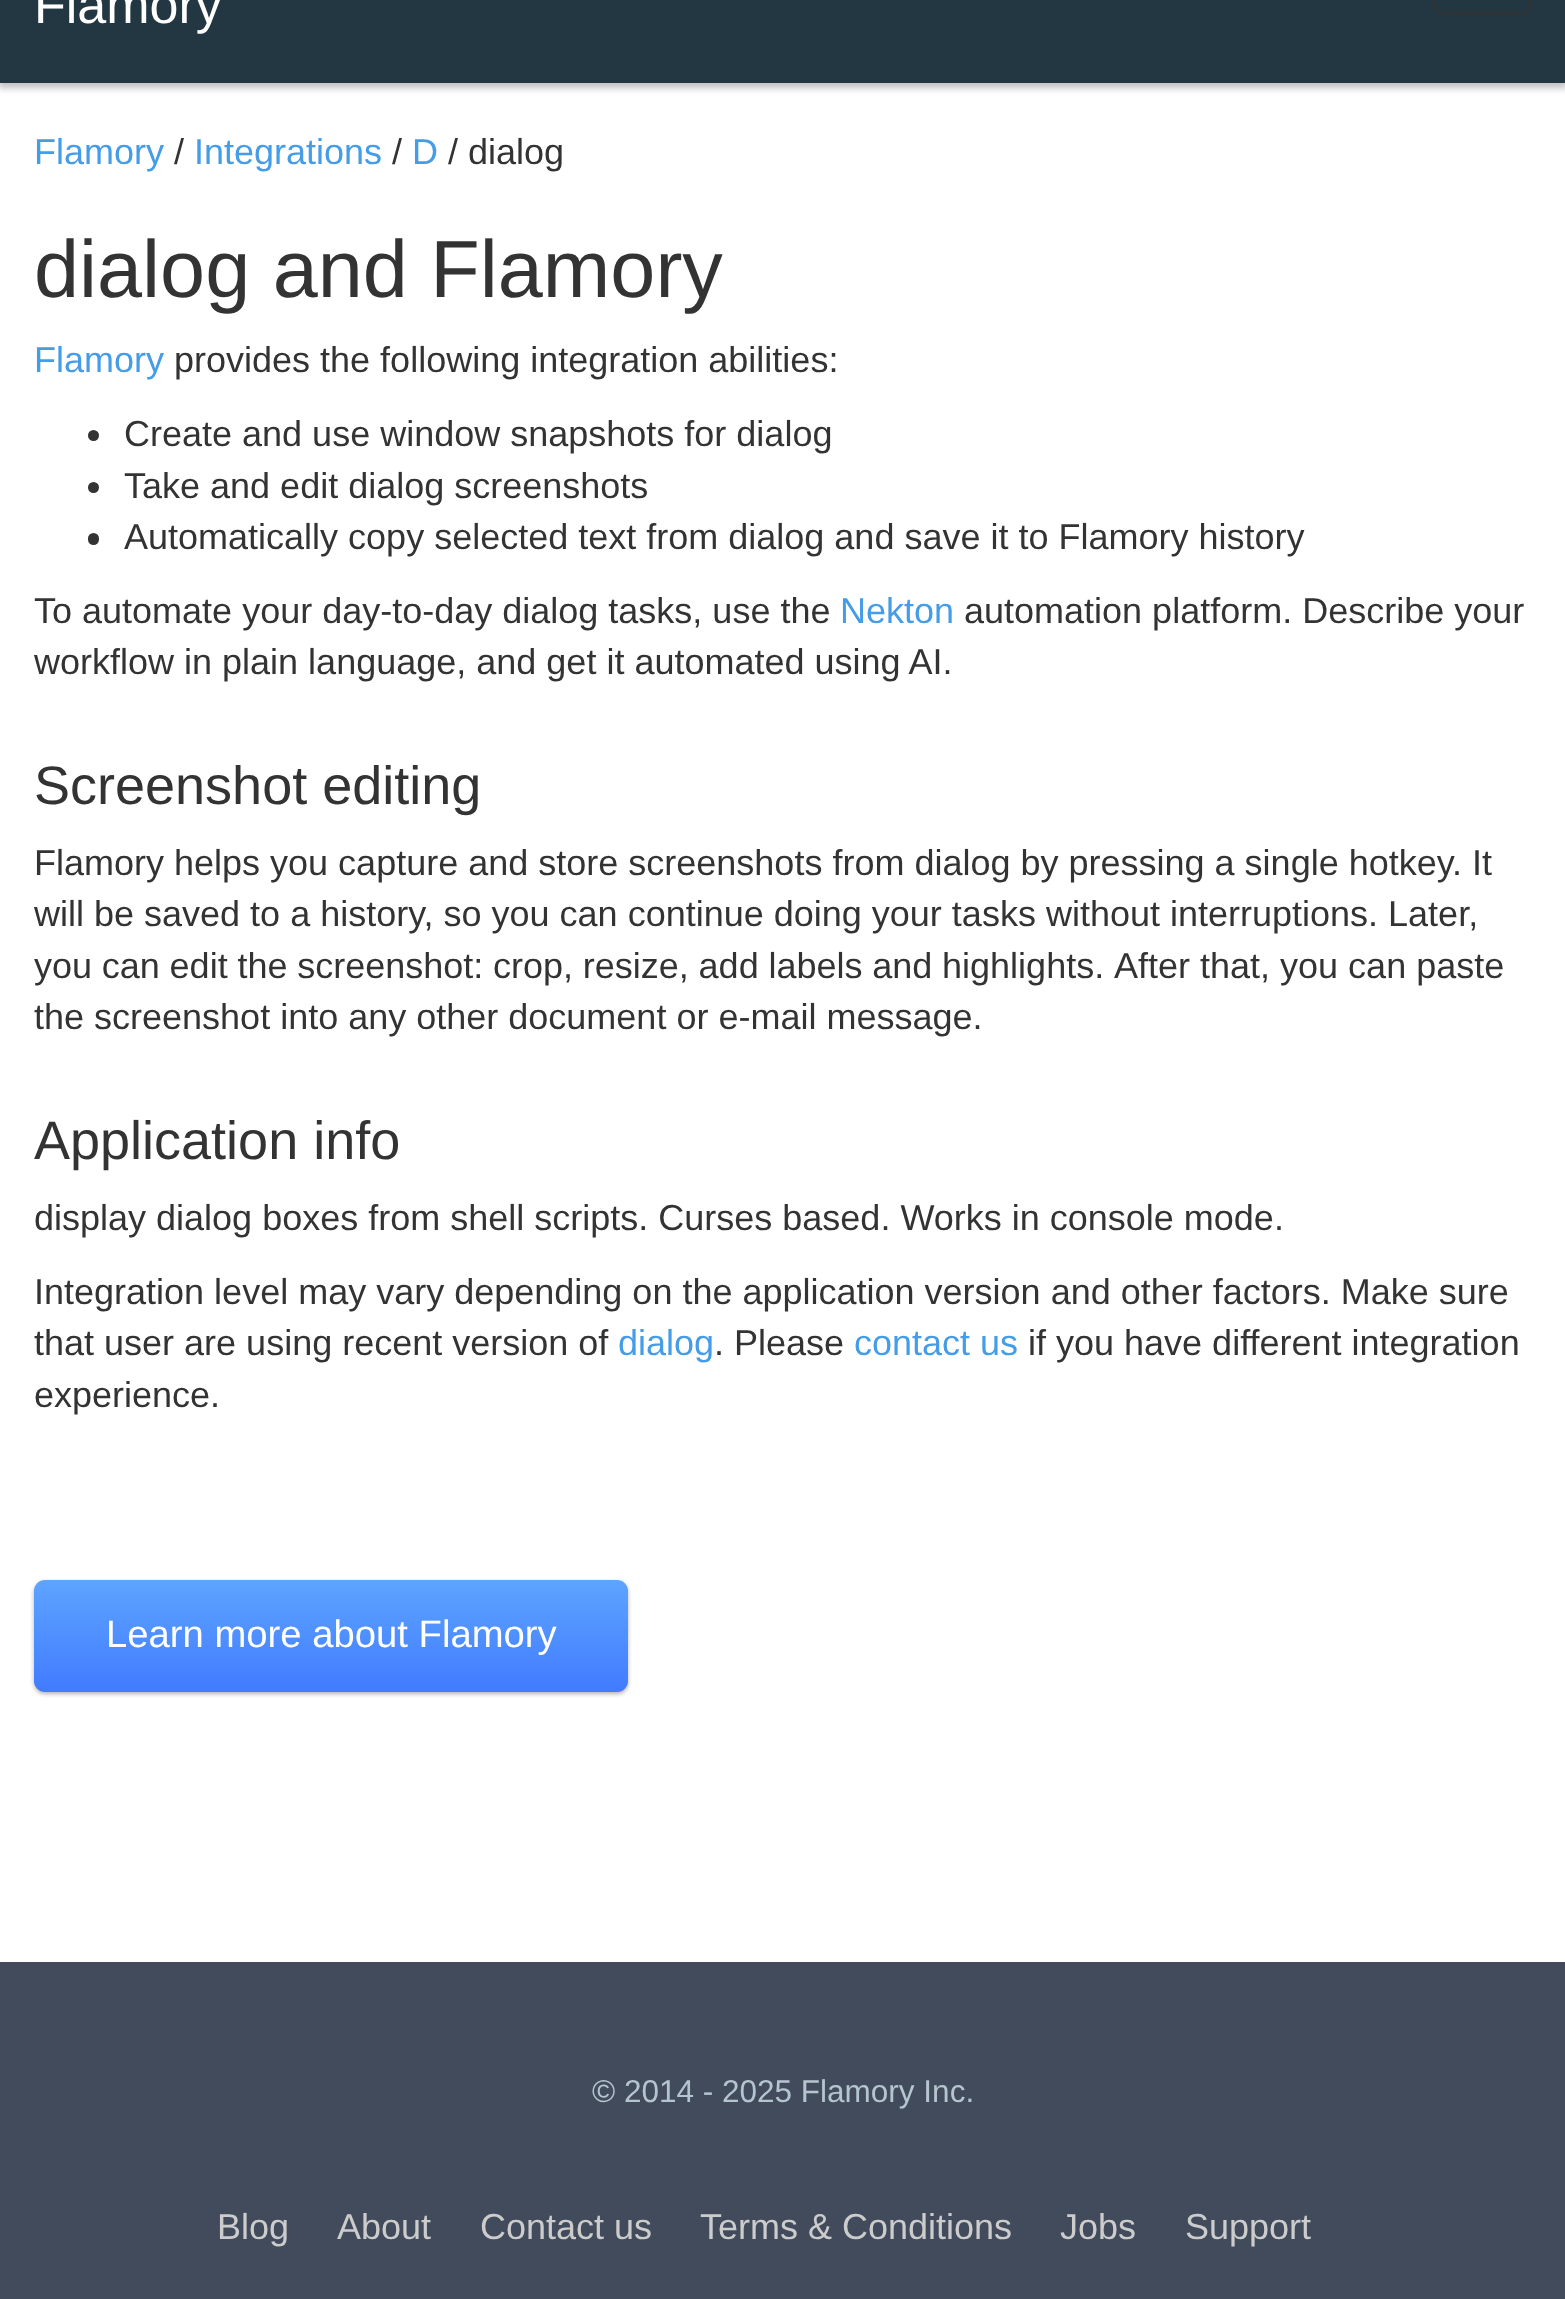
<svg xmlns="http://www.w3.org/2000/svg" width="1565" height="2299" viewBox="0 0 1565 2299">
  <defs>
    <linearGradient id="g1" gradientUnits="userSpaceOnUse" x1="331" y1="1580" x2="331" y2="1692"><stop offset="0" stop-color="rgb(93,164,255)"/><stop offset="1" stop-color="rgb(65,123,255)"/></linearGradient>
  </defs>
  <rect width="100%" height="100%" fill="rgb(255,255,255)"/>
  <rect x="-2" y="-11" width="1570" height="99" fill="rgba(46,46,46,0.3)" filter="blur(3.5px)"/>
  <rect x="0" y="0" width="1565" height="83" fill="rgb(34,55,65)"/>
  <text x="34" y="23" font-family="Liberation Sans" font-size="52" fill="rgb(255,255,255)">Flamory</text>
  <rect x="1434" y="-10" width="97" height="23" rx="8" fill="none" stroke="rgb(51,51,51)" stroke-width="2"/>
  <text x="34" y="164" font-family="Liberation Sans" font-size="36" fill="rgb(69,156,231)">Flamory</text>
  <text x="174" y="164" font-family="Liberation Sans" font-size="36" fill="rgb(51,51,51)">/</text>
  <text x="194" y="164" font-family="Liberation Sans" font-size="36" fill="rgb(69,156,231)">Integrations</text>
  <text x="392" y="164" font-family="Liberation Sans" font-size="36" fill="rgb(51,51,51)">/</text>
  <text x="412" y="164" font-family="Liberation Sans" font-size="36" fill="rgb(69,156,231)">D</text>
  <text x="448" y="164" font-family="Liberation Sans" font-size="36" fill="rgb(51,51,51)">/ dialog</text>
  <text x="34" y="297" font-family="Liberation Sans" font-size="81" fill="rgb(51,51,51)">dialog and Flamory</text>
  <text x="34" y="372" font-family="Liberation Sans" font-size="36" fill="rgb(69,156,231)">Flamory</text>
  <text x="174" y="372" font-family="Liberation Sans" font-size="36" fill="rgb(51,51,51)">provides the following integration abilities:</text>
  <circle cx="93.5" cy="435.5" r="5.5" fill="rgb(51,51,51)"/>
  <text x="124" y="446" font-family="Liberation Sans" font-size="36" fill="rgb(51,51,51)">Create and use window snapshots for dialog</text>
  <circle cx="93.5" cy="487.5" r="5.5" fill="rgb(51,51,51)"/>
  <text x="124" y="498" font-family="Liberation Sans" font-size="36" fill="rgb(51,51,51)">Take and edit dialog screenshots</text>
  <rect x="88" y="533" width="11" height="12" rx="5.5" fill="rgb(51,51,51)"/>
  <g font-family="Liberation Sans" font-size="36" fill="rgb(51,51,51)">
    <text x="124" y="549">Automatically copy selected text from dialog and save it to Flamory history</text>
    <text x="34" y="623">To automate your day-to-day dialog tasks, use the</text>
  </g>
  <text x="840" y="623" font-family="Liberation Sans" font-size="36" fill="rgb(69,156,231)">Nekton</text>
  <g font-family="Liberation Sans" font-size="36" fill="rgb(51,51,51)">
    <text x="964" y="623">automation platform. Describe your</text>
    <text x="34" y="674">workflow in plain language, and get it automated using AI.</text>
  </g>
  <text x="34" y="804" font-family="Liberation Sans" font-size="54" fill="rgb(51,51,51)">Screenshot editing</text>
  <g font-family="Liberation Sans" font-size="36" fill="rgb(51,51,51)">
    <text>
      <tspan x="34" y="875">Flamory helps you capture and store screenshots from dialog by pressing a single hotkey. It</tspan>
      <tspan x="34" y="926">will be saved to a history, so you can continue doing your tasks without interruptions. Later,</tspan>
      <tspan x="34" y="978" word-spacing="-0.25">you can edit the screenshot: crop, resize, add labels and highlights.</tspan>
    </text>
    <text x="1114" y="978">After that, you can paste</text>
    <text x="34" y="1029">the screenshot into any other document or e-mail message.</text>
  </g>
  <text x="34" y="1159" font-family="Liberation Sans" font-size="54" fill="rgb(51,51,51)">Application info</text>
  <g font-family="Liberation Sans" font-size="36" fill="rgb(51,51,51)">
    <text x="34" y="1230">display dialog boxes from shell scripts. Curses based. Works in console mode.</text>
    <text>
      <tspan x="34" y="1304">Integration level may vary depending on the application version and other factors. Make sure</tspan>
      <tspan x="34" y="1355">that user are using recent version of</tspan>
    </text>
  </g>
  <text x="618" y="1355" font-family="Liberation Sans" font-size="36" fill="rgb(69,156,231)">dialog</text>
  <text x="714" y="1355" font-family="Liberation Sans" font-size="36" fill="rgb(51,51,51)">. Please</text>
  <text x="854" y="1355" font-family="Liberation Sans" font-size="36" fill="rgb(69,156,231)">contact us</text>
  <g font-family="Liberation Sans" font-size="36" fill="rgb(51,51,51)">
    <text x="1028" y="1355">if you have different integration</text>
    <text x="34" y="1407">experience.</text>
  </g>
  <rect x="34" y="1582" width="594" height="112" rx="11" fill="rgba(0,0,0,0.3)" filter="blur(2px)"/>
  <rect x="34" y="1580" width="594" height="112" rx="11" fill="url(#g1)"/>
  <text x="106" y="1647" font-family="Liberation Sans" font-size="38.25" fill="rgb(255,255,255)">Learn more about Flamory</text>
  <rect x="0" y="1962" width="1565" height="337" fill="rgb(65,75,91)"/>
  <text x="592" y="2102" font-family="Liberation Sans" font-size="31.5" fill="rgb(181,197,207)">© 2014 - 2025 Flamory Inc.</text>
  <g font-family="Liberation Sans" font-size="36" fill="rgb(204,204,204)">
    <text x="217" y="2239">Blog</text>
    <text x="337" y="2239">About</text>
    <text x="480" y="2239">Contact us</text>
    <text x="700" y="2239">Terms &amp; Conditions</text>
    <text x="1060" y="2239">Jobs</text>
    <text x="1185" y="2239">Support</text>
  </g>
</svg>
